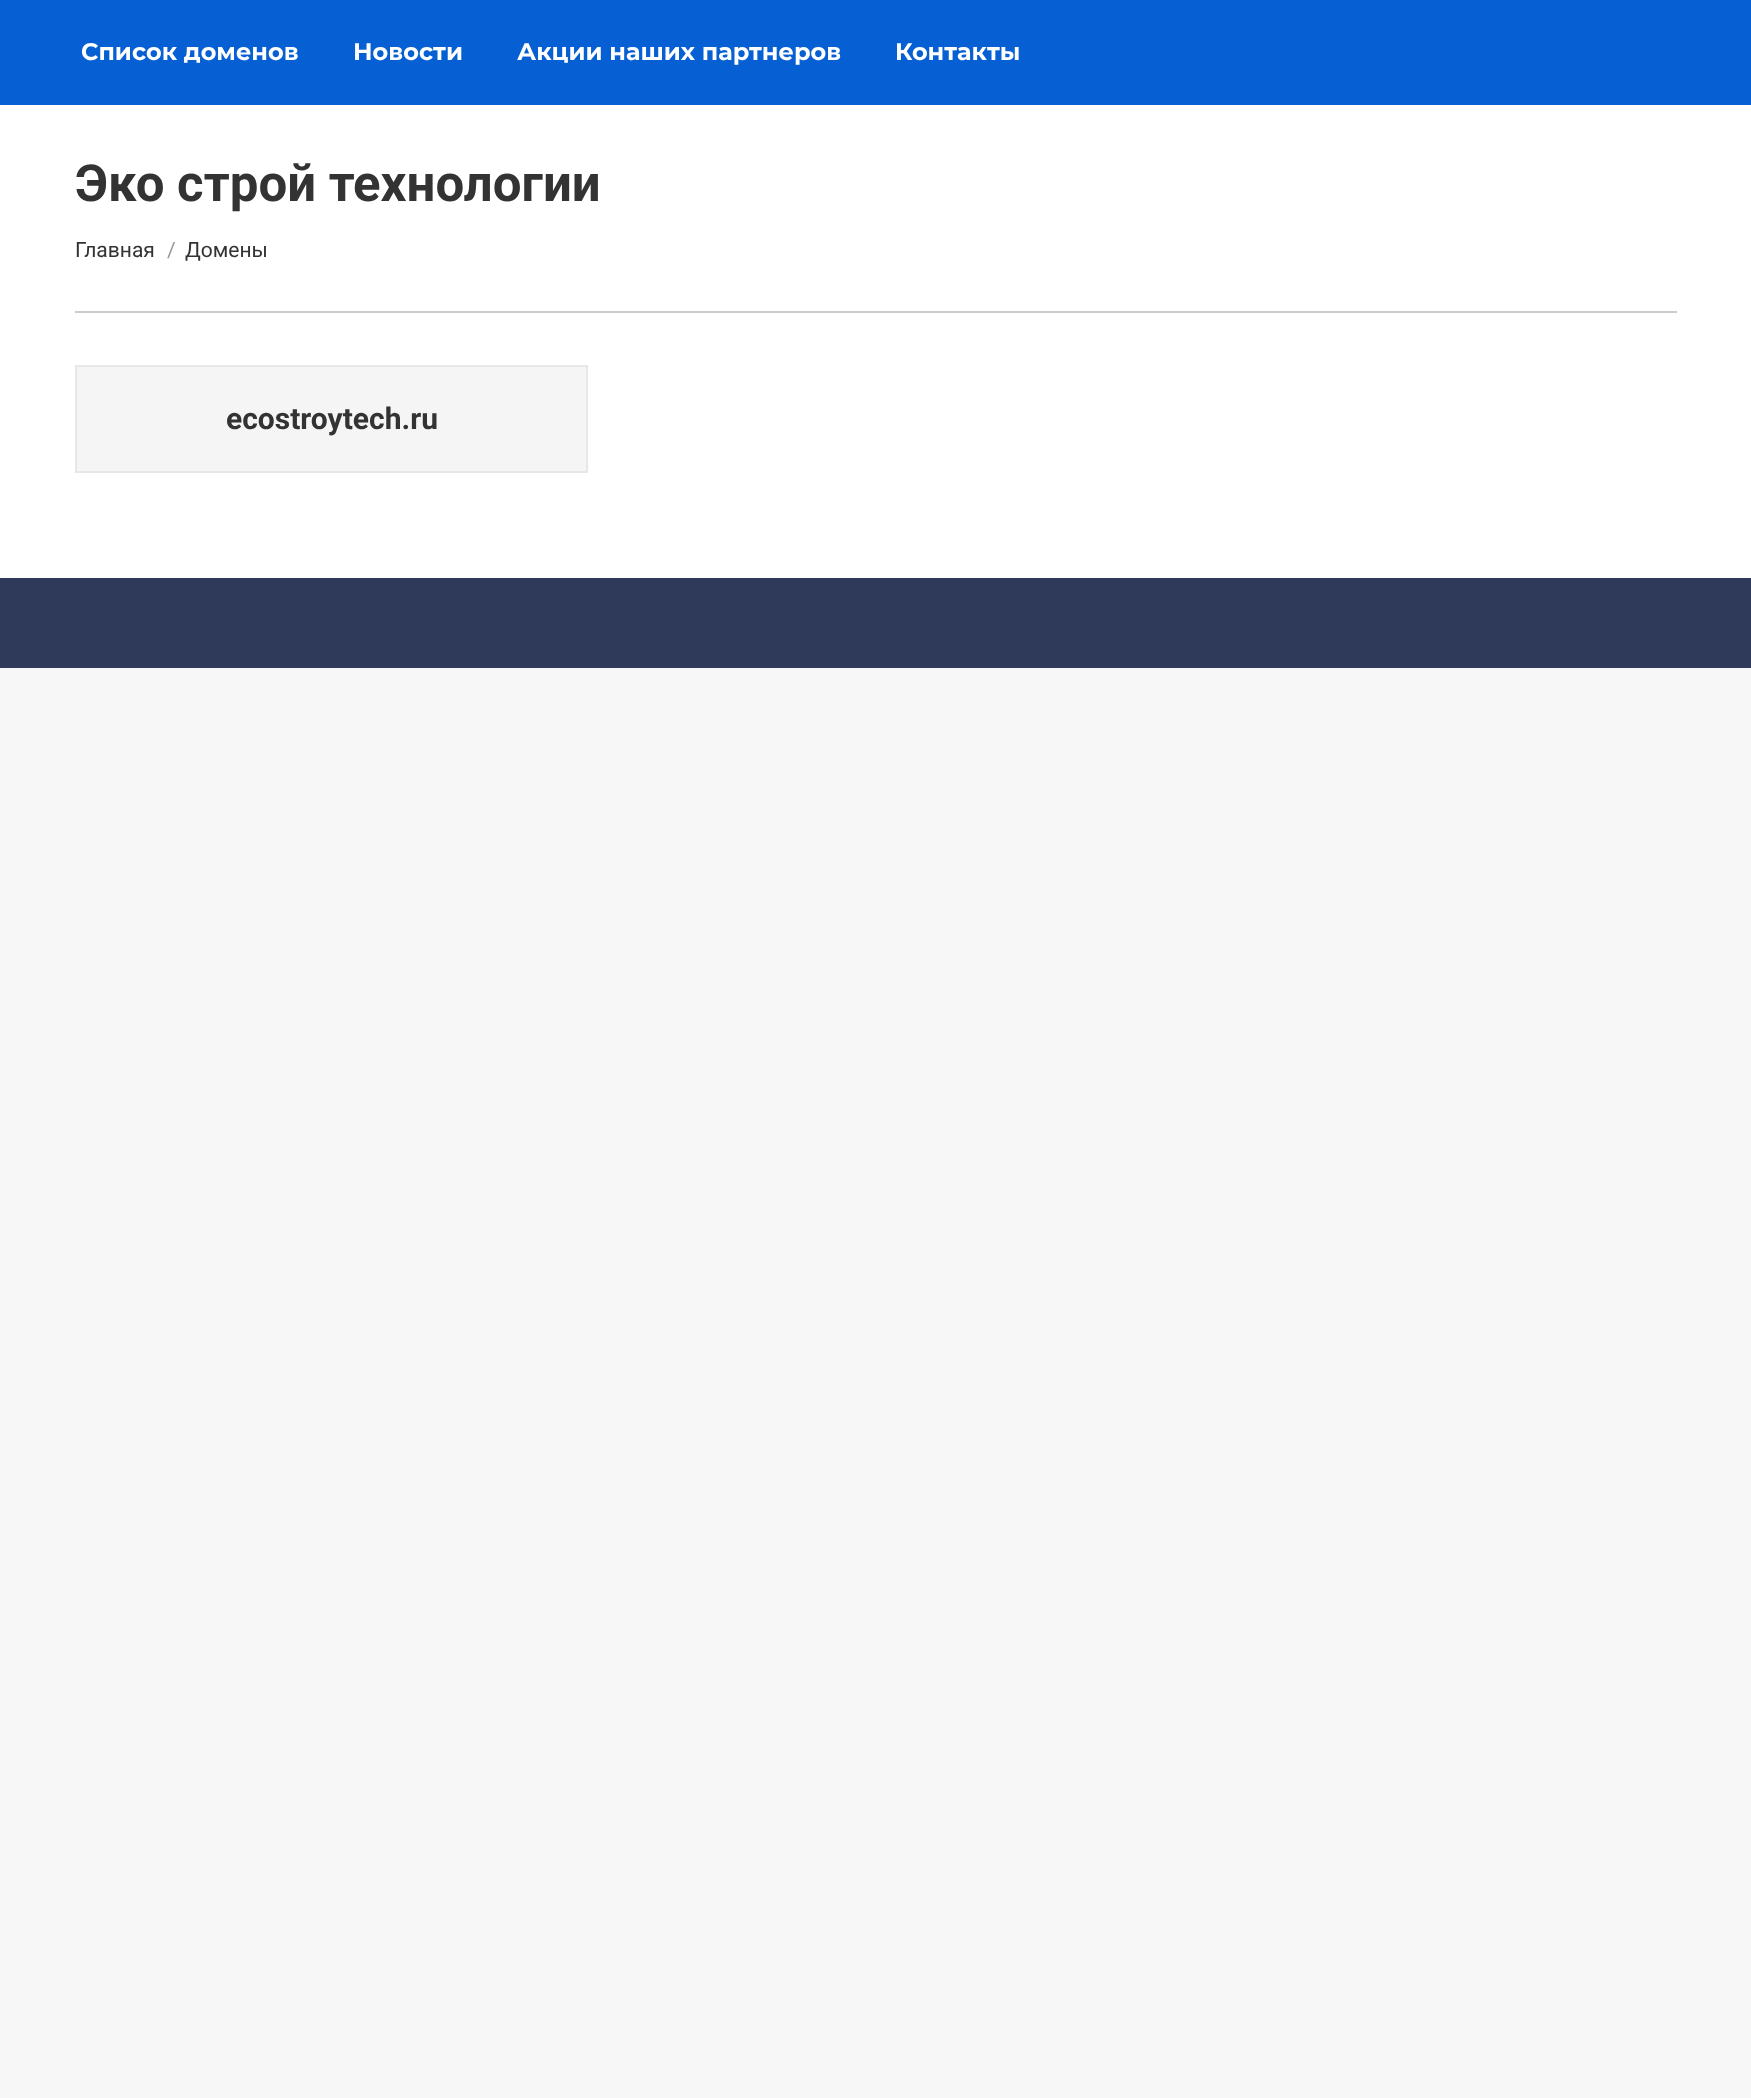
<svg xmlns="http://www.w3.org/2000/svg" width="1751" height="2098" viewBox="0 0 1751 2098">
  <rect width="100%" height="100%" fill="rgb(247,247,247)"/>
  <rect x="0" y="105" width="1751" height="473" fill="rgb(255,255,255)"/>
  <rect x="0" y="0" width="1751" height="105" fill="rgb(6,95,211)"/>
  <g font-family="Montserrat" font-size="24" font-weight="bold" fill="rgb(255,255,255)">
    <text x="81" y="60">Список доменов</text>
    <text x="353" y="60">Новости</text>
    <text x="517" y="60">Акции наших партнеров</text>
    <text x="895" y="60">Контакты</text>
  </g>
  <text x="75" y="201" font-family="Roboto" font-size="51" font-weight="bold" fill="rgb(51,51,51)">Эко строй технологии</text>
  <text x="75" y="257" font-family="Roboto" font-size="21" fill="rgb(51,51,51)">Главная</text>
  <text x="167" y="257" font-family="Roboto" font-size="21" fill="rgb(153,153,153)">/</text>
  <text x="185" y="257" font-family="Roboto" font-size="21" fill="rgb(51,51,51)">Домены</text>
  <rect x="75" y="311" width="1602" height="2" fill="rgb(204,204,204)"/>
  <rect x="76" y="366" width="511" height="106" fill="rgb(245,245,245)" stroke="rgb(231,231,231)" stroke-width="2"/>
  <text x="226" y="429" font-family="Roboto" font-size="30" font-weight="bold" fill="rgb(51,51,51)">ecostroytech.ru</text>
  <rect x="0" y="578" width="1751" height="90" fill="rgb(47,57,89)"/>
</svg>
